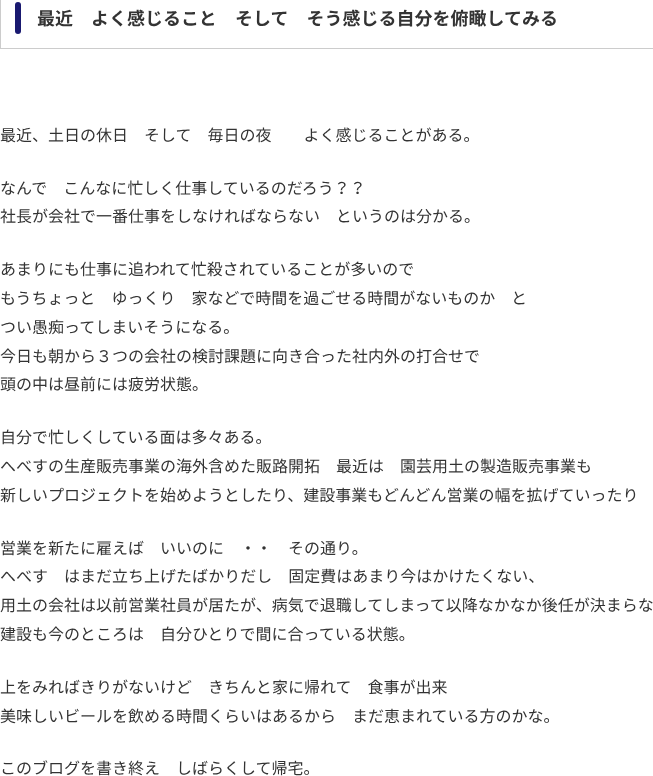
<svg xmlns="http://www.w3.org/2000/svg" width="653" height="776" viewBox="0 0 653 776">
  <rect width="100%" height="100%" fill="rgb(255,255,255)"/>
  <rect x="0.5" y="-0.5" width="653" height="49" fill="none" stroke="rgb(204,204,204)"/>
  <rect x="15" y="2" width="6" height="32" rx="3" fill="rgb(25,25,112)"/>
  <text x="37" y="25" font-family="Noto Sans JP" font-size="18" font-weight="bold" fill="rgb(51,51,51)">最近　よく感じること　そして　そう感じる自分を俯瞰してみる</text>
  <g font-family="Noto Sans JP" font-size="16" fill="rgb(51,51,51)">
    <text x="0" y="141">最近、土日の休日　そして　毎日の夜　　よく感じることがある。</text>
    <text>
      <tspan x="0" y="194">なんで　こんなに忙しく仕事しているのだろう？？</tspan>
      <tspan x="0" y="222">社長が会社で一番仕事をしなければならない　というのは分かる。</tspan>
    </text>
    <text>
      <tspan x="0" y="275">あまりにも仕事に追われて忙殺されていることが多いので</tspan>
      <tspan x="0" y="304">もうちょっと　ゆっくり　家などで時間を過ごせる時間がないものか　と</tspan>
      <tspan x="0" y="333">つい愚痴ってしまいそうになる。</tspan>
      <tspan x="0" y="362">今日も朝から３つの会社の検討課題に向き合った社内外の打合せで</tspan>
      <tspan x="0" y="390">頭の中は昼前には疲労状態。</tspan>
    </text>
    <text>
      <tspan x="0" y="443">自分で忙しくしている面は多々ある。</tspan>
      <tspan x="0" y="472">へべすの生産販売事業の海外含めた販路開拓　最近は　園芸用土の製造販売事業も</tspan>
      <tspan x="0" y="501">新しいプロジェクトを始めようとしたり、建設事業もどんどん営業の幅を拡げていったり</tspan>
    </text>
    <text>
      <tspan x="0" y="554">営業を新たに雇えば　いいのに　・・　その通り。</tspan>
      <tspan x="0" y="582">へべす　はまだ立ち上げたばかりだし　固定費はあまり今はかけたくない、</tspan>
      <tspan x="0" y="611">用土の会社は以前営業社員が居たが、病気で退職してしまって以降なかなか後任が決まらな</tspan>
      <tspan x="0" y="640">建設も今のところは　自分ひとりで間に合っている状態。</tspan>
    </text>
    <text>
      <tspan x="0" y="693">上をみればきりがないけど　きちんと家に帰れて　食事が出来</tspan>
      <tspan x="0" y="722">美味しいビールを飲める時間くらいはあるから　まだ恵まれている方のかな。</tspan>
    </text>
    <text x="0" y="774">このブログを書き終え　しばらくして帰宅。</text>
  </g>
</svg>
